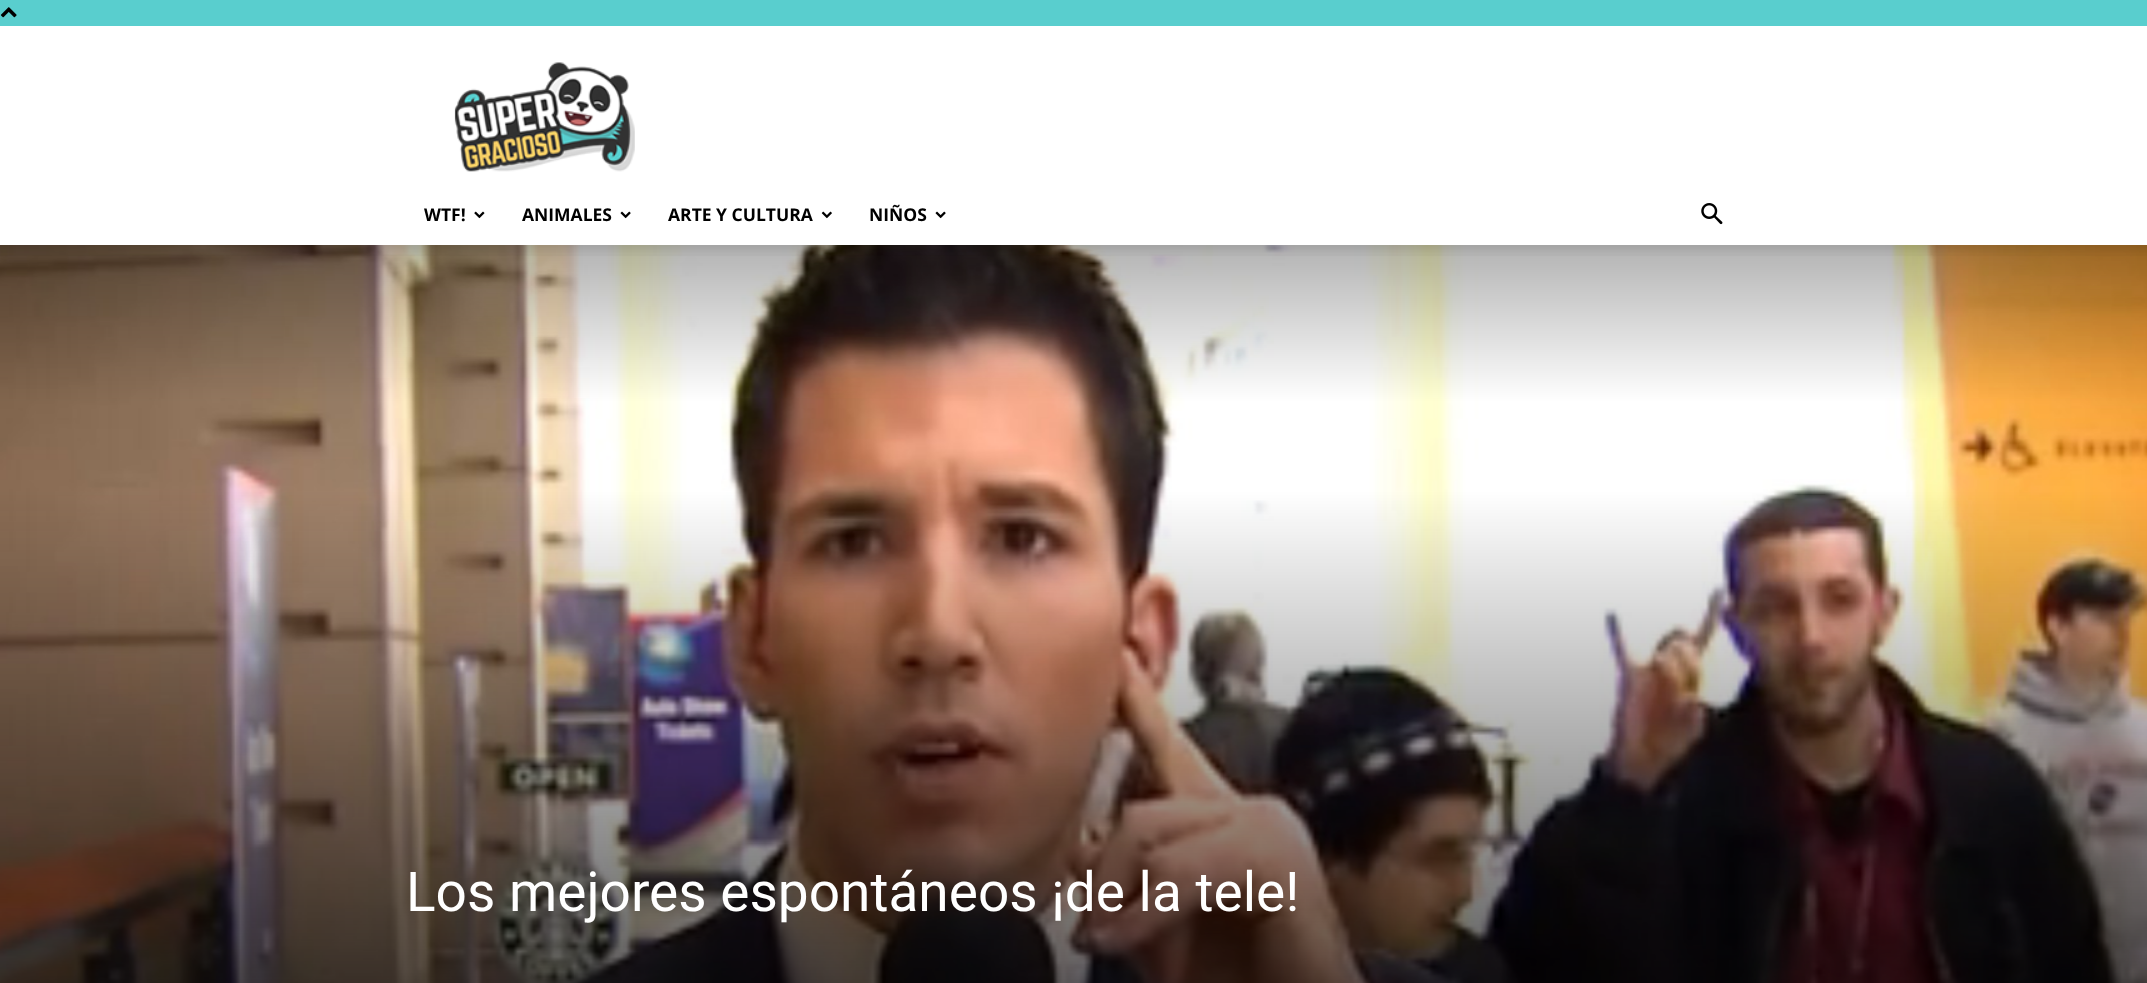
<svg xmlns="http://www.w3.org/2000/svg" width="2147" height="983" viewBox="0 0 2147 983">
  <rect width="100%" height="100%" fill="rgb(255,255,255)"/>
  <rect x="0" y="0" width="2147" height="26" fill="rgb(89,206,206)"/>
  <image x="0" y="7" width="17" height="11" href="pic1.png"/>
  <image x="454" y="62" width="181" height="110" href="pic2.png"/>
  <text x="424" y="221" font-family="Open Sans" font-size="17.5" font-weight="bold" fill="rgb(0,0,0)">WTF!</text>
  <image x="474" y="211" width="11" height="8" href="pic3.png"/>
  <text x="522" y="221" font-family="Open Sans" font-size="17.5" font-weight="bold" fill="rgb(0,0,0)">ANIMALES</text>
  <image x="620" y="211" width="11" height="8" href="pic4.png"/>
  <text x="668" y="221" font-family="Open Sans" font-size="17.5" font-weight="bold" fill="rgb(0,0,0)">ARTE Y CULTURA</text>
  <image x="821" y="211" width="11" height="8" href="pic5.png"/>
  <text x="869" y="221" font-family="Open Sans" font-size="17.5" font-weight="bold" fill="rgb(0,0,0)">NIÑOS</text>
  <image x="935" y="211" width="11" height="8" href="pic4.png"/>
  <image x="1701" y="203" width="22" height="22" href="pic6.png"/>
  <image x="0" y="245" width="2147" height="738" href="pic8.png"/>
  <image x="0" y="245" width="2147" height="11" href="pic7.png"/>
  <text x="406" y="911" font-family="Roboto" font-size="55" fill="rgb(255,255,255)">Los mejores espontáneos ¡de la tele!</text>
</svg>
